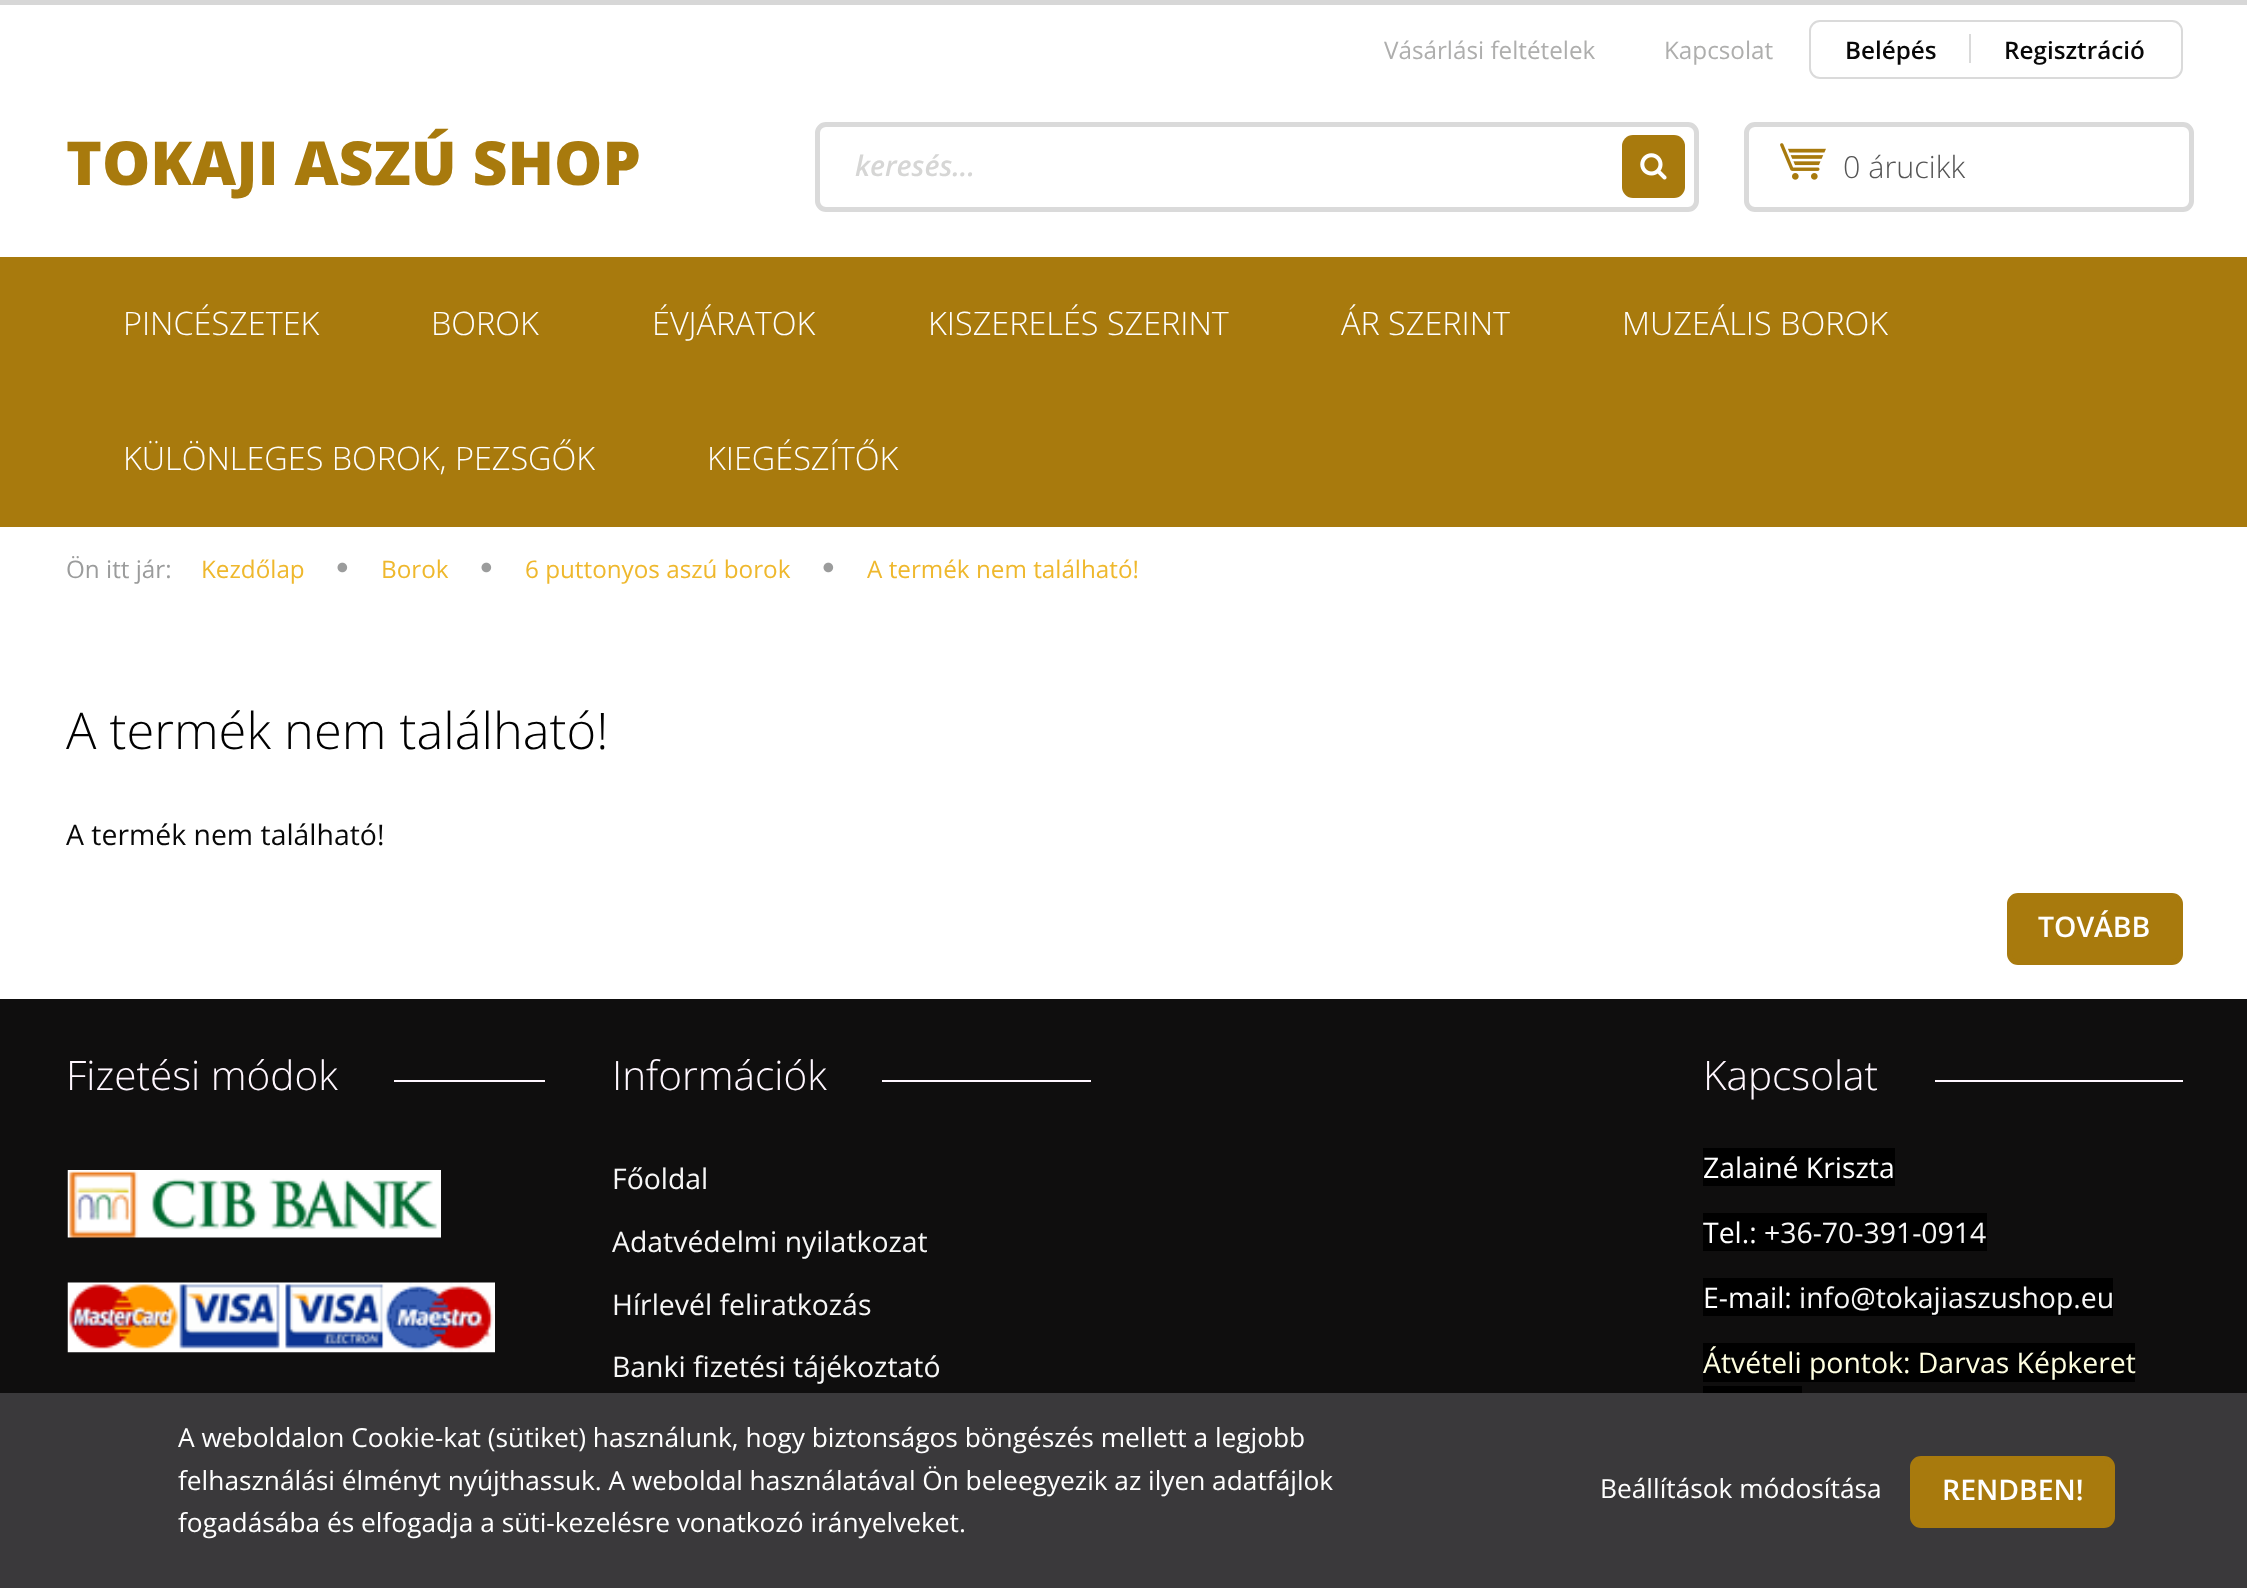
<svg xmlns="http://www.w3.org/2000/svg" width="2247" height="1588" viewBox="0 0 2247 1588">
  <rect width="100%" height="100%" fill="rgb(255,255,255)"/>
  <rect x="0" y="0" width="2247" height="5" fill="rgb(215,215,215)"/>
  <g font-family="Open Sans" font-size="24.25" fill="rgb(174,174,173)">
    <text x="1384" y="59">Vásárlási feltételek</text>
    <text x="1664" y="59">Kapcsolat</text>
  </g>
  <rect x="1810" y="21" width="372" height="57" rx="10" fill="none" stroke="rgb(218,218,218)" stroke-width="2"/>
  <text x="1845" y="59" font-family="Open Sans" font-size="24.25" font-weight="600" fill="rgb(8,8,8)">Belépés</text>
  <rect x="1969" y="34" width="2" height="29" fill="rgb(218,218,218)"/>
  <text x="2004" y="59" font-family="Open Sans" font-size="24.25" font-weight="600" fill="rgb(8,8,8)">Regisztráció</text>
  <text x="66" y="185" font-family="Open Sans" font-size="60.75" font-weight="800" fill="rgb(168,122,13)">TOKAJI ASZÚ SHOP</text>
  <rect x="817.5" y="124.5" width="879" height="85" rx="8.5" fill="none" stroke="rgb(218,218,218)" stroke-width="5"/>
  <text x="855" y="176" font-family="Open Sans" font-size="28.4" font-weight="600" font-style="italic" fill="rgb(214,214,213)">keresés...</text>
  <rect x="1622" y="135" width="63" height="63" rx="11" fill="rgb(168,122,13)"/>
  <image x="1640" y="153" width="27" height="27" href="pic1.png"/>
  <rect x="1746.5" y="124.5" width="445" height="85" rx="8.5" fill="none" stroke="rgb(218,218,218)" stroke-width="5"/>
  <image x="1780" y="143" width="46" height="37" href="pic2.png"/>
  <text x="1843" y="178" font-family="Open Sans" font-size="30.5" font-weight="300" fill="rgb(85,85,85)">0 árucikk</text>
  <rect x="0" y="257" width="2247" height="270" fill="rgb(168,122,13)"/>
  <g font-family="Open Sans" font-size="32.4" font-weight="300" fill="rgb(255,255,255)">
    <text x="123" y="335">PINCÉSZETEK</text>
    <text x="431" y="335">BOROK</text>
    <text x="652" y="335">ÉVJÁRATOK</text>
    <text x="928" y="335">KISZERELÉS SZERINT</text>
    <text x="1341" y="335">ÁR SZERINT</text>
    <text x="1622" y="335">MUZEÁLIS BOROK</text>
    <text x="123" y="470">KÜLÖNLEGES BOROK, PEZSGŐK</text>
    <text x="707" y="470">KIEGÉSZÍTŐK</text>
  </g>
  <text x="66" y="578" font-family="Open Sans" font-size="24.25" fill="rgb(155,156,156)">Ön itt jár:</text>
  <text x="201" y="578" font-family="Open Sans" font-size="24.25" fill="rgb(239,184,45)">Kezdőlap</text>
  <image x="337" y="562" width="11" height="11" href="pic3.png"/>
  <text x="381" y="578" font-family="Open Sans" font-size="24.25" fill="rgb(239,184,45)">Borok</text>
  <image x="481" y="562" width="11" height="11" href="pic3.png"/>
  <text x="525" y="578" font-family="Open Sans" font-size="24.25" fill="rgb(239,184,45)">6 puttonyos aszú borok</text>
  <image x="823" y="562" width="11" height="11" href="pic3.png"/>
  <text x="867" y="578" font-family="Open Sans" font-size="24.25" fill="rgb(239,184,45)">A termék nem található!</text>
  <text x="66" y="749" font-family="Open Sans" font-size="50.6" font-weight="300" fill="rgb(0,0,0)">A termék nem található!</text>
  <text x="66" y="845" font-family="Open Sans" font-size="28.4" fill="rgb(8,8,8)">A termék nem található!</text>
  <rect x="2009.5" y="895.5" width="171" height="67" rx="8.5" fill="rgb(168,122,13)" stroke="rgb(168,122,13)" stroke-width="5"/>
  <text x="2038" y="937" font-family="Open Sans" font-size="28.4" font-weight="600" fill="rgb(255,255,255)">TOVÁBB</text>
  <rect x="0" y="999" width="2247" height="394" fill="rgb(15,14,14)"/>
  <text x="66" y="1090" font-family="Open Sans" font-size="40.5" font-weight="300" fill="rgb(255,247,255)">Fizetési módok</text>
  <rect x="394" y="1080" width="151" height="2" fill="rgb(255,247,255)"/>
  <image x="67" y="1170" width="374" height="68" href="pic4.png"/>
  <image x="67" y="1282" width="428" height="71" href="pic5.png"/>
  <text x="612" y="1090" font-family="Open Sans" font-size="40.5" font-weight="300" fill="rgb(255,247,255)">Információk</text>
  <rect x="882" y="1080" width="209" height="2" fill="rgb(255,247,255)"/>
  <g font-family="Open Sans" font-size="28.4" fill="rgb(247,247,247)">
    <text x="612" y="1189">Főoldal</text>
    <text x="612" y="1252">Adatvédelmi nyilatkozat</text>
    <text x="612" y="1315">Hírlevél feliratkozás</text>
    <text x="612" y="1377">Banki fizetési tájékoztató</text>
  </g>
  <text x="1703" y="1090" font-family="Open Sans" font-size="40.5" font-weight="300" fill="rgb(255,247,255)">Kapcsolat</text>
  <rect x="1935" y="1080" width="248" height="2" fill="rgb(255,247,255)"/>
  <rect x="1703" y="1148" width="192" height="38" fill="rgb(0,0,0)"/>
  <text x="1703" y="1178" font-family="Open Sans" font-size="28.4" fill="rgb(255,255,255)">Zalainé Kriszta</text>
  <rect x="1703" y="1213" width="284" height="38" fill="rgb(0,0,0)"/>
  <text x="1703" y="1243" font-family="Open Sans" font-size="28.4" fill="rgb(255,255,255)">Tel.:</text>
  <text x="1764" y="1243" font-family="Open Sans" font-size="28.4" fill="rgb(247,247,247)">+36-70-391-0914</text>
  <rect x="1703" y="1278" width="410" height="38" fill="rgb(0,0,0)"/>
  <text x="1703" y="1308" font-family="Open Sans" font-size="28.4" fill="rgb(255,255,255)">E-mail:</text>
  <text x="1799" y="1308" font-family="Open Sans" font-size="28.4" fill="rgb(247,247,247)">info@tokajiaszushop.eu</text>
  <rect x="1703" y="1343" width="432" height="39" fill="rgb(0,0,0)"/>
  <text x="1703" y="1373" font-family="Open Sans" font-size="28.4" fill="rgb(255,255,224)">Átvételi pontok: Darvas Képkeret</text>
  <rect x="1703" y="1386" width="99" height="7" fill="rgb(0,0,0)"/>
  <rect x="0" y="1393" width="2247" height="195" fill="rgb(58,57,59)"/>
  <g font-family="Open Sans" font-size="26.3" fill="rgb(255,255,255)">
    <text>
      <tspan x="178" y="1447">A weboldalon Cookie-kat (sütiket) használunk, hogy biztonságos böngészés mellett a legjobb</tspan>
      <tspan x="178" y="1490" word-spacing="-0.1">felhasználási élményt nyújthassuk. A weboldal használatával Ön beleegyezik az ilyen adatfájlok</tspan>
      <tspan x="178" y="1532">fogadásába és elfogadja a süti-kezelésre vonatkozó irányelveket.</tspan>
    </text>
    <text x="1600" y="1498">Beállítások módosítása</text>
  </g>
  <rect x="1912.5" y="1458.5" width="200" height="67" rx="8.5" fill="rgb(168,122,13)" stroke="rgb(168,122,13)" stroke-width="5"/>
  <text x="1942" y="1500" font-family="Open Sans" font-size="28.4" font-weight="600" fill="rgb(255,255,255)">RENDBEN!</text>
</svg>
